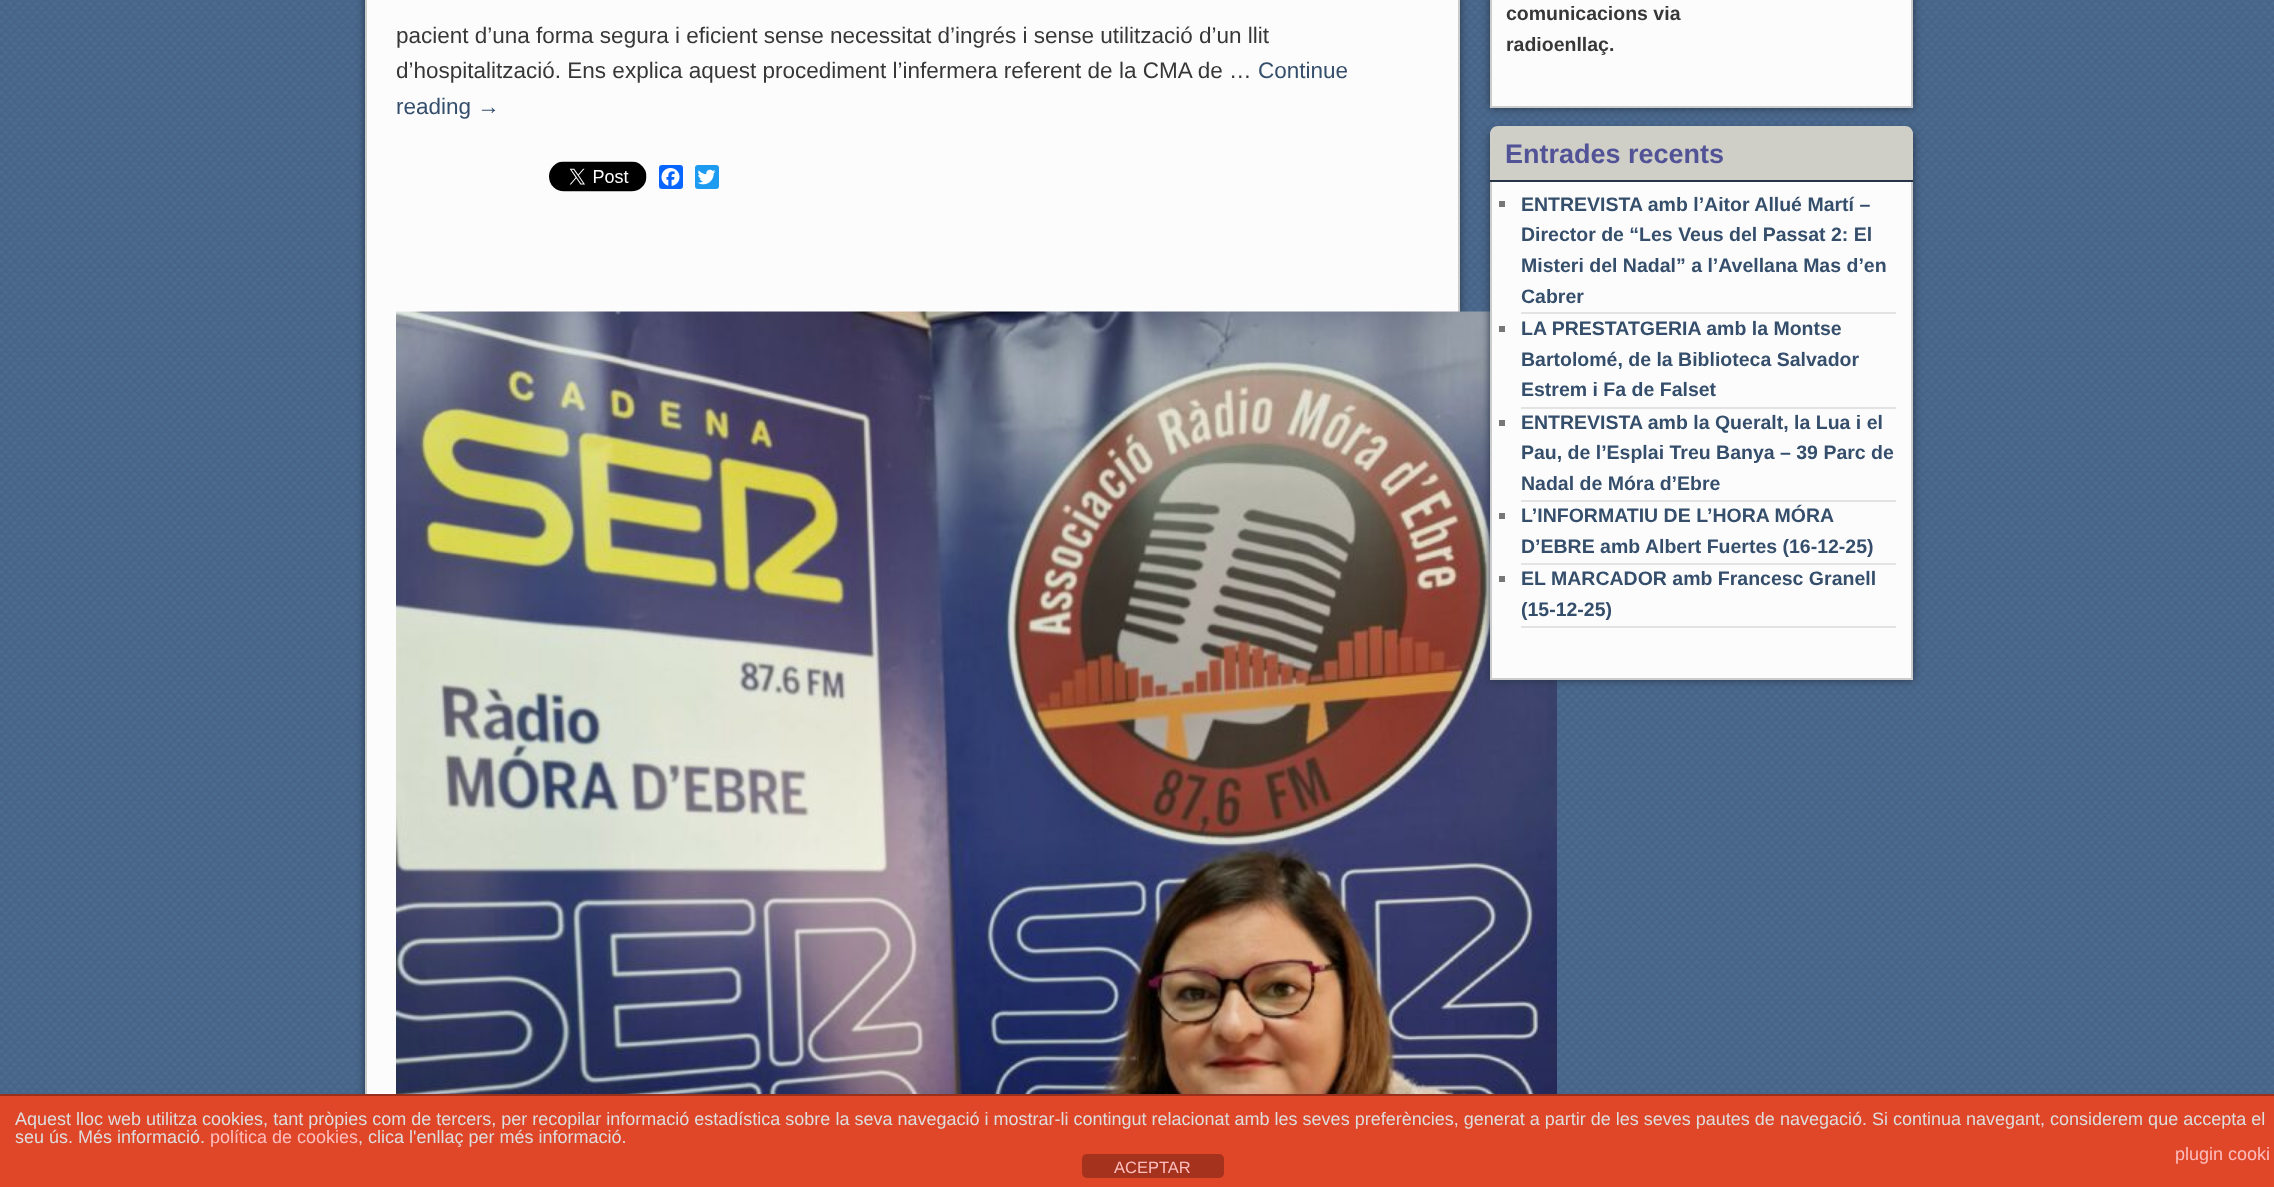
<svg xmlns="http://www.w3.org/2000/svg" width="2274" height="1187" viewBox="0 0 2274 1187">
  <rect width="100%" height="100%" fill="rgb(255,255,255)"/>
  <image x="0" y="0" width="2274" height="1094" href="pic1.png"/>
  <rect x="365" y="-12" width="1095" height="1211" fill="rgb(38,52,71)" filter="blur(4px)"/>
  <rect x="367" y="0" width="1091" height="1094" fill="rgb(252,252,252)"/>
  <rect x="1458" y="0" width="2" height="312" fill="rgb(204,204,204)"/>
  <rect x="365" y="0" width="2" height="1094" fill="rgb(204,204,204)"/>
  <g font-family="Liberation Sans" font-size="22.5" fill="rgb(55,55,55)">
    <text>
      <tspan x="396" y="43">pacient d’una forma segura i eficient sense necessitat d’ingrés i sense utilització d’un llit</tspan>
      <tspan x="396" y="78">d’hospitalització. Ens explica aquest procediment l’infermera referent de la CMA de …</tspan>
    </text>
  </g>
  <g font-family="Liberation Sans" font-size="22.5" fill="rgb(53,78,107)">
    <text x="1258" y="78">Continue</text>
    <text x="396" y="114">reading →</text>
  </g>
  <image x="549" y="161" width="98" height="31" href="pic2.png"/>
  <rect x="659" y="165" width="24" height="24" rx="3" fill="rgb(8,102,255)"/>
  <image x="661" y="168" width="19" height="18" href="pic3.png"/>
  <rect x="695" y="165" width="24" height="24" rx="3" fill="rgb(29,155,240)"/>
  <image x="697" y="169" width="19" height="16" href="pic4.png"/>
  <image x="396" y="311" width="1161" height="783" href="pic5.png"/>
  <rect x="1490" y="-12" width="423" height="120" fill="rgb(38,52,71)" filter="blur(4px)"/>
  <rect x="1491" y="-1" width="421" height="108" fill="rgb(252,252,252)" stroke="rgb(204,204,204)" stroke-width="2"/>
  <g font-family="Liberation Sans" font-size="19.5" font-weight="bold" fill="rgb(55,55,55)">
    <text>
      <tspan x="1506" y="20">comunicacions via</tspan>
      <tspan x="1506" y="51">radioenllaç.</tspan>
    </text>
  </g>
  <rect x="1490" y="132" width="423" height="548" fill="rgb(38,52,71)" filter="blur(4px)"/>
  <rect x="1492" y="182" width="419" height="496" fill="rgb(252,252,252)"/>
  <rect x="1491" y="133" width="421" height="546" fill="none" stroke="rgb(204,204,204)" stroke-width="2"/>
  <path d="M1498 126H1905C1909.5 126 1913 129.5 1913 134V182H1490V134C1490 129.5 1493.5 126 1498 126Z" fill="rgb(207,206,199)"/>
  <rect x="1490" y="180" width="423" height="2" fill="rgb(38,52,71)"/>
  <text x="1505" y="163" font-family="Liberation Sans" font-size="27" font-weight="bold" fill="rgb(81,83,150)">Entrades recents</text>
  <rect x="1521" y="312" width="375" height="2" fill="rgb(227,227,227)"/>
  <rect x="1499" y="201" width="6" height="6" fill="rgb(119,119,119)"/>
  <g font-family="Liberation Sans" font-size="19.5" font-weight="bold" fill="rgb(53,78,107)">
    <text>
      <tspan x="1521" y="211">ENTREVISTA amb l’Aitor Allué Martí –</tspan>
      <tspan x="1521" y="241">Director de “Les Veus del Passat 2: El</tspan>
      <tspan x="1521" y="272">Misteri del Nadal” a l’Avellana Mas d’en</tspan>
      <tspan x="1521" y="303">Cabrer</tspan>
    </text>
  </g>
  <rect x="1521" y="407" width="375" height="2" fill="rgb(227,227,227)"/>
  <rect x="1499" y="326" width="6" height="6" fill="rgb(119,119,119)"/>
  <g font-family="Liberation Sans" font-size="19.5" font-weight="bold" fill="rgb(53,78,107)">
    <text>
      <tspan x="1521" y="335">LA PRESTATGERIA amb la Montse</tspan>
      <tspan x="1521" y="366">Bartolomé, de la Biblioteca Salvador</tspan>
      <tspan x="1521" y="396">Estrem i Fa de Falset</tspan>
    </text>
  </g>
  <rect x="1521" y="500" width="375" height="2" fill="rgb(227,227,227)"/>
  <rect x="1499" y="420" width="6" height="6" fill="rgb(119,119,119)"/>
  <g font-family="Liberation Sans" font-size="19.5" font-weight="bold" fill="rgb(53,78,107)">
    <text>
      <tspan x="1521" y="429">ENTREVISTA amb la Queralt, la Lua i el</tspan>
      <tspan x="1521" y="459">Pau, de l’Esplai Treu Banya – 39 Parc de</tspan>
      <tspan x="1521" y="490">Nadal de Móra d’Ebre</tspan>
    </text>
  </g>
  <rect x="1521" y="563" width="375" height="2" fill="rgb(227,227,227)"/>
  <rect x="1499" y="513" width="6" height="6" fill="rgb(119,119,119)"/>
  <g font-family="Liberation Sans" font-size="19.5" font-weight="bold" fill="rgb(53,78,107)">
    <text>
      <tspan x="1521" y="522">L’INFORMATIU DE L’HORA MÓRA</tspan>
      <tspan x="1521" y="553">D’EBRE amb Albert Fuertes (16-12-25)</tspan>
    </text>
  </g>
  <rect x="1521" y="626" width="375" height="2" fill="rgb(227,227,227)"/>
  <rect x="1499" y="576" width="6" height="6" fill="rgb(119,119,119)"/>
  <g font-family="Liberation Sans" font-size="19.5" font-weight="bold" fill="rgb(53,78,107)">
    <text>
      <tspan x="1521" y="585">EL MARCADOR amb Francesc Granell</tspan>
      <tspan x="1521" y="616">(15-12-25)</tspan>
    </text>
  </g>
  <rect x="0" y="1096" width="2274" height="91" fill="rgb(224,71,41)"/>
  <rect x="0" y="1094" width="2274" height="2" fill="rgb(153,48,27)"/>
  <g font-family="Liberation Sans" font-size="18" fill="rgb(221,221,221)">
    <text>
      <tspan x="15" y="1125">Aquest lloc web utilitza cookies, tant pròpies com de tercers, per recopilar informació estadística sobre la seva navegació i mostrar-li contingut relacionat amb les seves preferències, generat a partir de les seves pautes de navegació. Si continua navegant, considerem que accepta el</tspan>
      <tspan x="15" y="1143">seu ús. Més informació.</tspan>
    </text>
  </g>
  <text x="210" y="1143" font-family="Liberation Sans" font-size="18" fill="rgb(254,190,190)">política de cookies</text>
  <text x="358" y="1143" font-family="Liberation Sans" font-size="18" fill="rgb(221,221,221)">, clica l'enllaç per més informació.</text>
  <text x="2175" y="1160" font-family="Liberation Sans" font-size="18" fill="rgb(254,190,190)">plugin cooki</text>
  <rect x="1082" y="1154" width="142" height="24" rx="5" fill="rgb(165,50,28)"/>
  <text x="1114" y="1173" font-family="Liberation Sans" font-size="16.5" fill="rgb(254,190,190)">ACEPTAR</text>
</svg>
